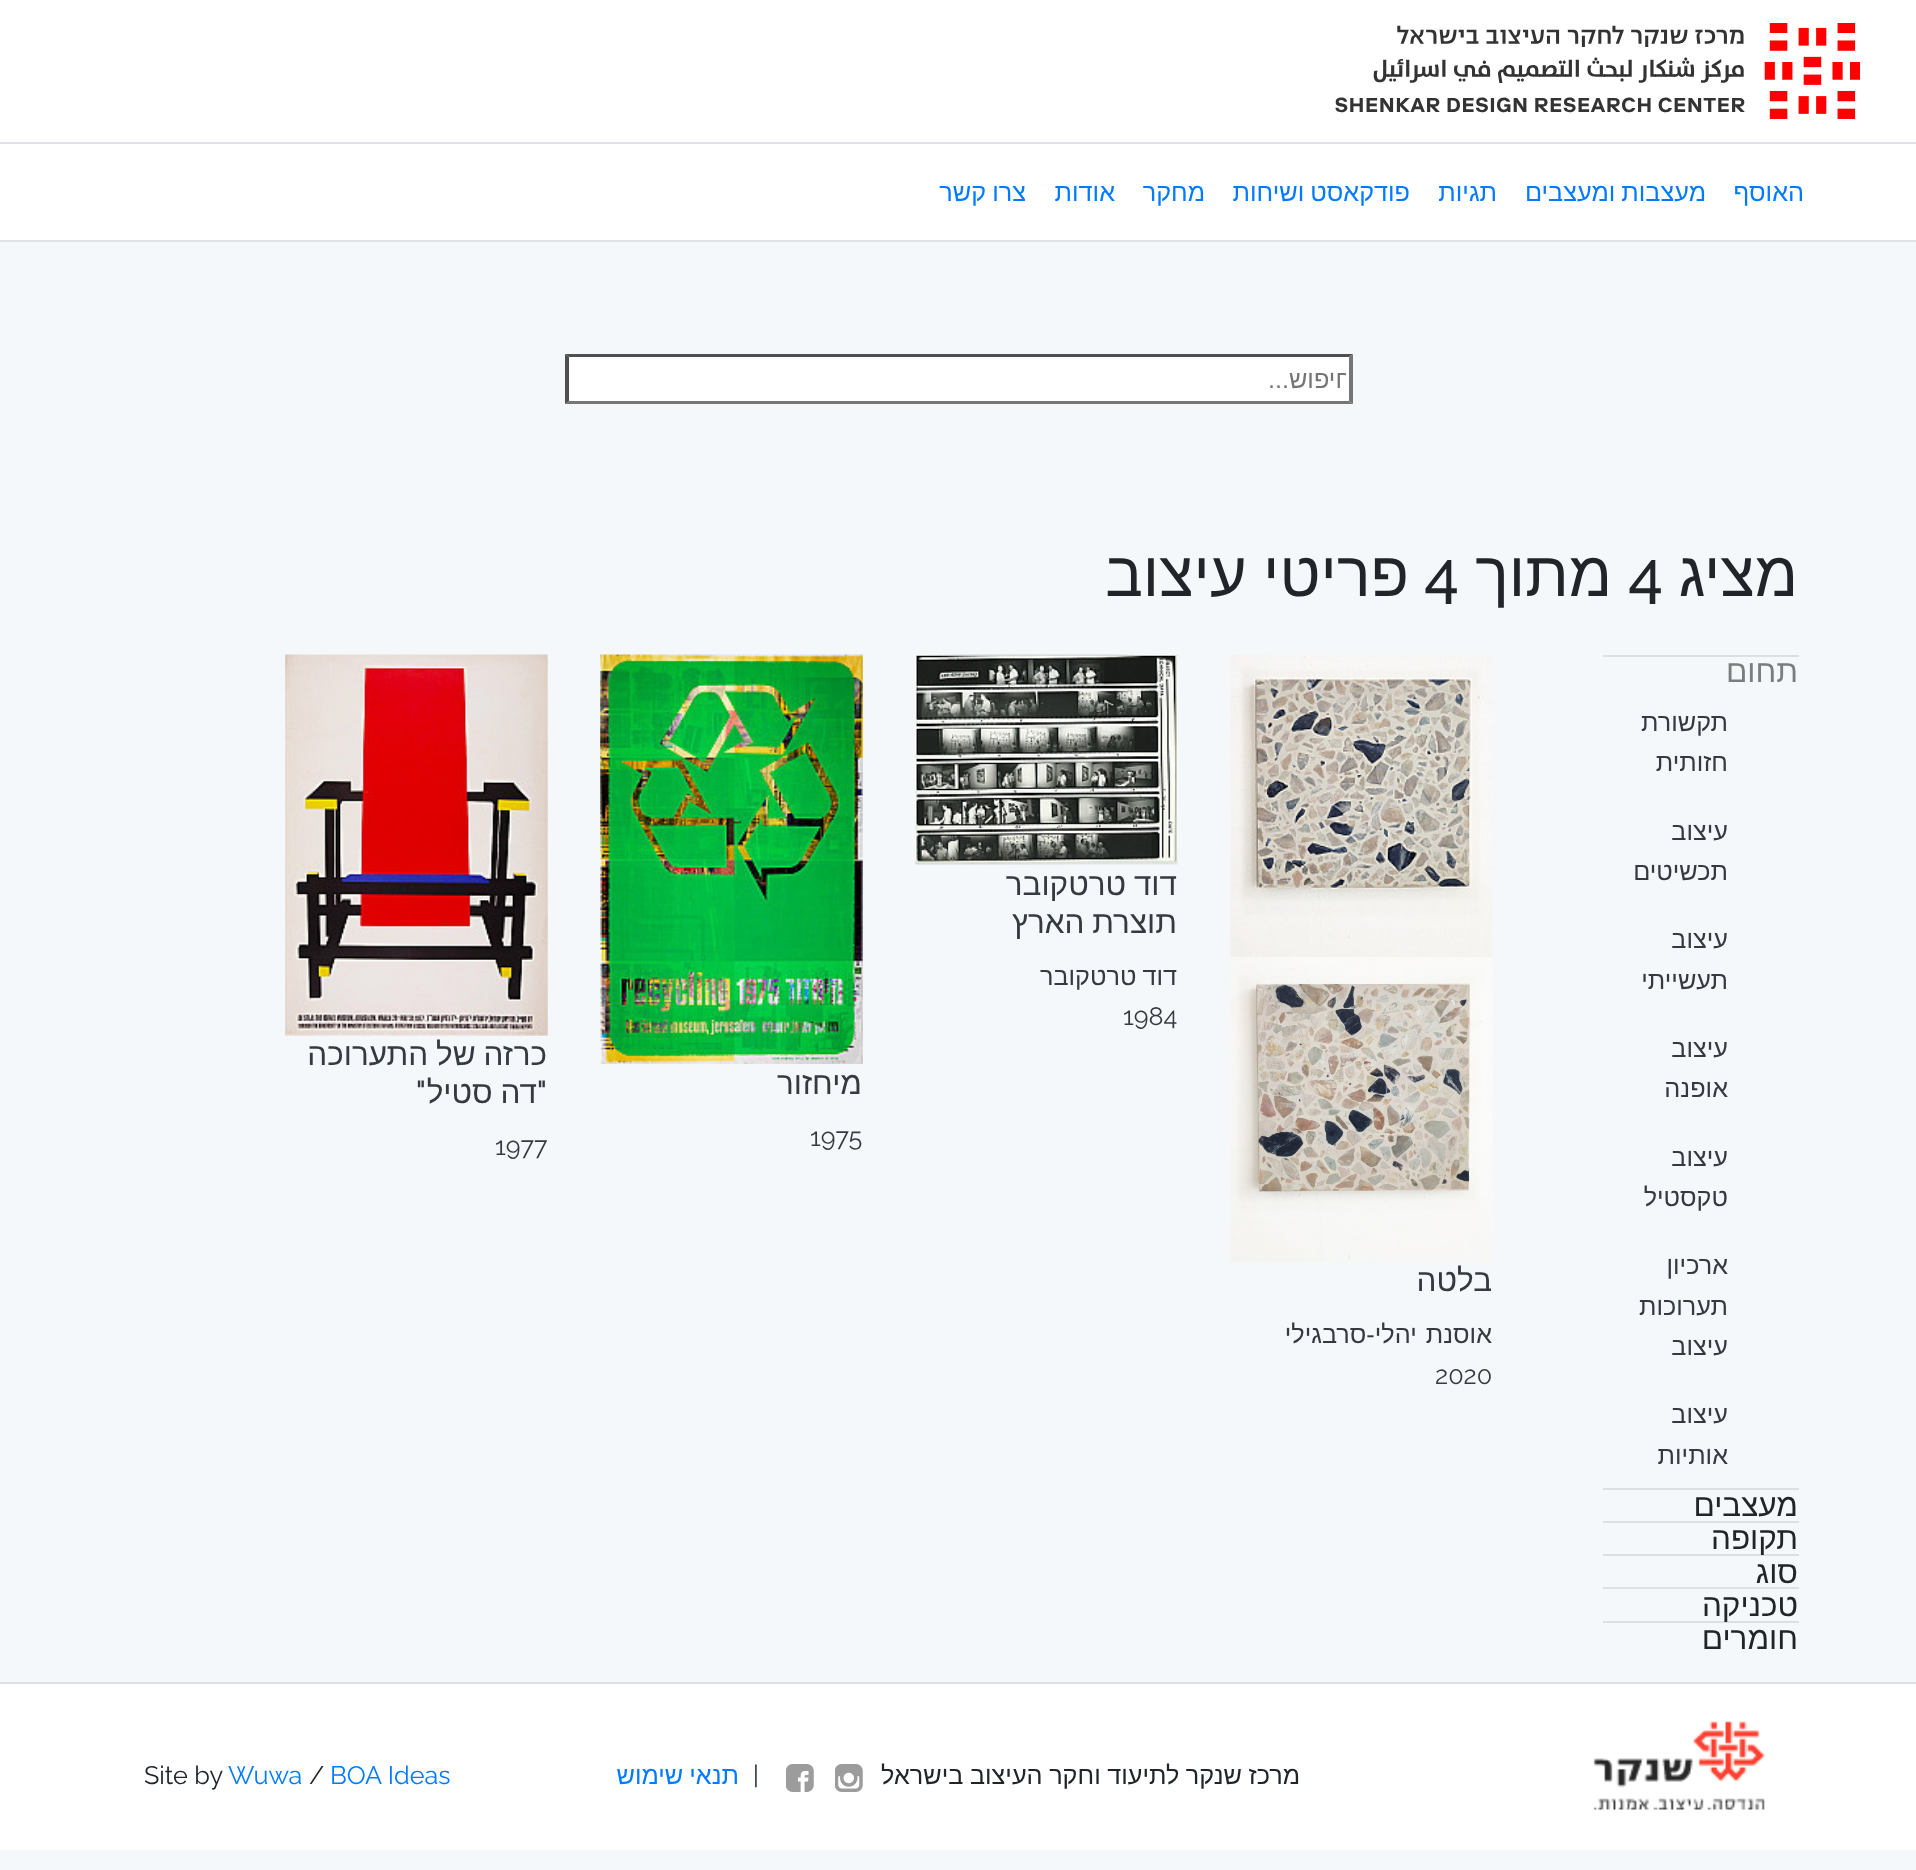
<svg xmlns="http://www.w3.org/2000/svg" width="1916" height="1870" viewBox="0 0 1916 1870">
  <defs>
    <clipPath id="clip1"><rect x="597" y="364" width="749" height="30"/></clipPath>
  </defs>
  <rect width="100%" height="100%" fill="rgb(245,248,250)"/>
  <rect x="0" y="0" width="1916" height="142" fill="rgb(255,255,255)"/>
  <image x="1335" y="23" width="525" height="96" href="pic1.png"/>
  <rect x="0" y="144" width="1916" height="96" fill="rgb(255,255,255)"/>
  <rect x="0" y="142" width="1916" height="2" fill="rgb(222,226,230)"/>
  <rect x="0" y="240" width="1916" height="2" fill="rgb(222,226,230)"/>
  <g font-family="Liberation Sans" font-size="25.25" direction="rtl" fill="rgb(0,123,255)">
    <text x="1804" y="201">האוסף</text>
    <text x="1706" y="201" word-spacing="-1">מעצבות ומעצבים</text>
    <text x="1497" y="201">תגיות</text>
    <text x="1410" y="201" word-spacing="-1">פודקאסט ושיחות</text>
    <text x="1205" y="201">מחקר</text>
    <text x="1115" y="201">אודות</text>
    <text x="1026" y="201" word-spacing="-1">צרו קשר</text>
  </g>
  <rect x="565" y="354" width="788" height="50" fill="rgb(255,255,255)"/>
  <path d="M565 354H1353L1349 357H569Z" fill="rgb(79,79,79)"/>
  <path d="M1353 354V404L1349 401V357Z" fill="rgb(118,118,118)"/>
  <path d="M1353 404H565L569 401H1349Z" fill="rgb(118,118,118)"/>
  <path d="M565 404V354L569 357V401Z" fill="rgb(79,79,79)"/>
  <g clip-path="url(#clip1)">
    <text x="1352" y="388" font-family="Liberation Sans" font-size="25.25" direction="rtl" fill="rgb(117,117,117)">חיפוש...</text>
  </g>
  <text x="1798" y="596" font-family="Liberation Sans" font-size="63" direction="rtl" fill="rgb(33,37,41)">מציג</text>
  <text x="1628" y="596" font-family="Raleway" font-size="63" font-weight="500" fill="rgb(33,37,41)">4</text>
  <text x="1612" y="596" font-family="Liberation Sans" font-size="63" direction="rtl" fill="rgb(33,37,41)">מתוך</text>
  <text x="1424" y="596" font-family="Raleway" font-size="63" font-weight="500" fill="rgb(33,37,41)">4</text>
  <text x="1409" y="596" word-spacing="-1" font-family="Liberation Sans" font-size="63" direction="rtl" fill="rgb(33,37,41)">פריטי עיצוב</text>
  <rect x="1603" y="655" width="196" height="2" fill="rgb(221,223,225)"/>
  <text x="1798" y="682" font-family="Liberation Sans" font-size="31.5" direction="rtl" fill="rgb(123,124,125)">תחום</text>
  <g font-family="Liberation Sans" font-size="25.25" direction="rtl" fill="rgb(52,58,64)">
    <text>
      <tspan x="1728" y="731">תקשורת</tspan>
      <tspan x="1728" y="771">חזותית</tspan>
    </text>
    <text>
      <tspan x="1728" y="840">עיצוב</tspan>
      <tspan x="1728" y="880">תכשיטים</tspan>
    </text>
    <text>
      <tspan x="1728" y="948">עיצוב</tspan>
      <tspan x="1728" y="989">תעשייתי</tspan>
    </text>
    <text>
      <tspan x="1728" y="1057">עיצוב</tspan>
      <tspan x="1728" y="1097">אופנה</tspan>
    </text>
    <text>
      <tspan x="1728" y="1166">עיצוב</tspan>
      <tspan x="1728" y="1206">טקסטיל</tspan>
    </text>
    <text>
      <tspan x="1728" y="1274">ארכיון</tspan>
      <tspan x="1728" y="1315">תערוכות</tspan>
      <tspan x="1728" y="1355">עיצוב</tspan>
    </text>
    <text>
      <tspan x="1728" y="1423">עיצוב</tspan>
      <tspan x="1728" y="1464">אותיות</tspan>
    </text>
  </g>
  <rect x="1603" y="1488" width="196" height="2" fill="rgb(221,223,225)"/>
  <text x="1798" y="1516" font-family="Liberation Sans" font-size="31.5" direction="rtl" fill="rgb(33,37,41)">מעצבים</text>
  <rect x="1603" y="1521" width="196" height="2" fill="rgb(221,223,225)"/>
  <text x="1798" y="1549" font-family="Liberation Sans" font-size="31.5" direction="rtl" fill="rgb(33,37,41)">תקופה</text>
  <rect x="1603" y="1554" width="196" height="2" fill="rgba(0,0,0,0.1)"/>
  <text x="1798" y="1583" font-family="Liberation Sans" font-size="31.5" direction="rtl" fill="rgb(33,37,41)">סוג</text>
  <rect x="1603" y="1587" width="196" height="2" fill="rgb(221,223,225)"/>
  <text x="1798" y="1616" font-family="Liberation Sans" font-size="31.5" direction="rtl" fill="rgb(33,37,41)">טכניקה</text>
  <rect x="1603" y="1621" width="196" height="2" fill="rgba(0,0,0,0.1)"/>
  <text x="1798" y="1649" font-family="Liberation Sans" font-size="31.5" direction="rtl" fill="rgb(33,37,41)">חומרים</text>
  <image x="915" y="654" width="263" height="211" href="pic2.png"/>
  <g font-family="Liberation Sans" font-size="31.5" direction="rtl" fill="rgb(52,58,64)">
    <text>
      <tspan x="1177" y="895" word-spacing="-1">דוד טרטקובר</tspan>
      <tspan x="1177" y="933" word-spacing="-1">תוצרת הארץ</tspan>
    </text>
  </g>
  <text x="1177" y="985" word-spacing="-1" font-family="Liberation Sans" font-size="25.25" direction="rtl" fill="rgb(52,58,64)">דוד טרטקובר</text>
  <text x="1123" y="1025" font-family="Raleway" font-size="25.25" fill="rgb(52,58,64)">1984</text>
  <image x="600" y="654" width="263" height="410" href="pic3.png"/>
  <text x="862" y="1094" font-family="Liberation Sans" font-size="31.5" direction="rtl" fill="rgb(52,58,64)">מיחזור</text>
  <text x="810" y="1146" font-family="Raleway" font-size="25.25" fill="rgb(52,58,64)">1975</text>
  <image x="285" y="654" width="263" height="382" href="pic4.png"/>
  <text x="547" y="1065" word-spacing="-1" font-family="Liberation Sans" font-size="31.5" direction="rtl" fill="rgb(52,58,64)">כרזה של התערוכה</text>
  <text x="547" y="1103" font-family="Raleway" font-size="31.5" font-weight="500" direction="rtl" fill="rgb(52,58,64)">"</text>
  <text x="537" y="1103" word-spacing="-1" font-family="Liberation Sans" font-size="31.5" direction="rtl" fill="rgb(52,58,64)">דה סטיל</text>
  <text x="426" y="1103" font-family="Raleway" font-size="31.5" font-weight="500" direction="rtl" fill="rgb(52,58,64)">"</text>
  <text x="495" y="1155" font-family="Raleway" font-size="25.25" fill="rgb(52,58,64)">1977</text>
  <image x="1230" y="654" width="263" height="303" href="pic5.png"/>
  <image x="1230" y="957" width="263" height="305" href="pic6.png"/>
  <text x="1492" y="1291" font-family="Liberation Sans" font-size="31.5" direction="rtl" fill="rgb(52,58,64)">בלטה</text>
  <text x="1492" y="1343" word-spacing="2" font-family="Liberation Sans" font-size="25.25" direction="rtl" fill="rgb(52,58,64)">אוסנת יהלי-סרבגילי</text>
  <text x="1435" y="1384" font-family="Raleway" font-size="25.25" fill="rgb(52,58,64)">2020</text>
  <rect x="0" y="1684" width="1916" height="166" fill="rgb(255,255,255)"/>
  <rect x="0" y="1682" width="1916" height="2" fill="rgb(222,226,230)"/>
  <image x="1593" y="1721" width="172" height="89" href="pic7.png"/>
  <text x="1300" y="1784" word-spacing="-0.5" font-family="Liberation Sans" font-size="25.25" direction="rtl" fill="rgb(33,37,41)">מרכז שנקר לתיעוד וחקר העיצוב בישראל</text>
  <image x="835" y="1764" width="28" height="28" href="pic8.png"/>
  <image x="786" y="1764" width="28" height="28" href="pic9.png"/>
  <text x="753" y="1784" font-family="Raleway" font-size="25.25" fill="rgb(33,37,41)">|</text>
  <text x="739" y="1784" word-spacing="-1" font-family="Liberation Sans" font-size="25.25" direction="rtl" fill="rgb(0,123,255)">תנאי שימוש</text>
  <text x="330" y="1784" font-family="Raleway" font-size="25.25" fill="rgb(0,123,255)">BOA Ideas</text>
  <text x="309" y="1784" font-family="Raleway" font-size="25.25" fill="rgb(33,37,41)">/</text>
  <text x="228" y="1784" font-family="Raleway" font-size="25.25" fill="rgb(0,123,255)">Wuwa</text>
  <text x="144" y="1784" font-family="Raleway" font-size="25.25" fill="rgb(33,37,41)">Site by</text>
</svg>
